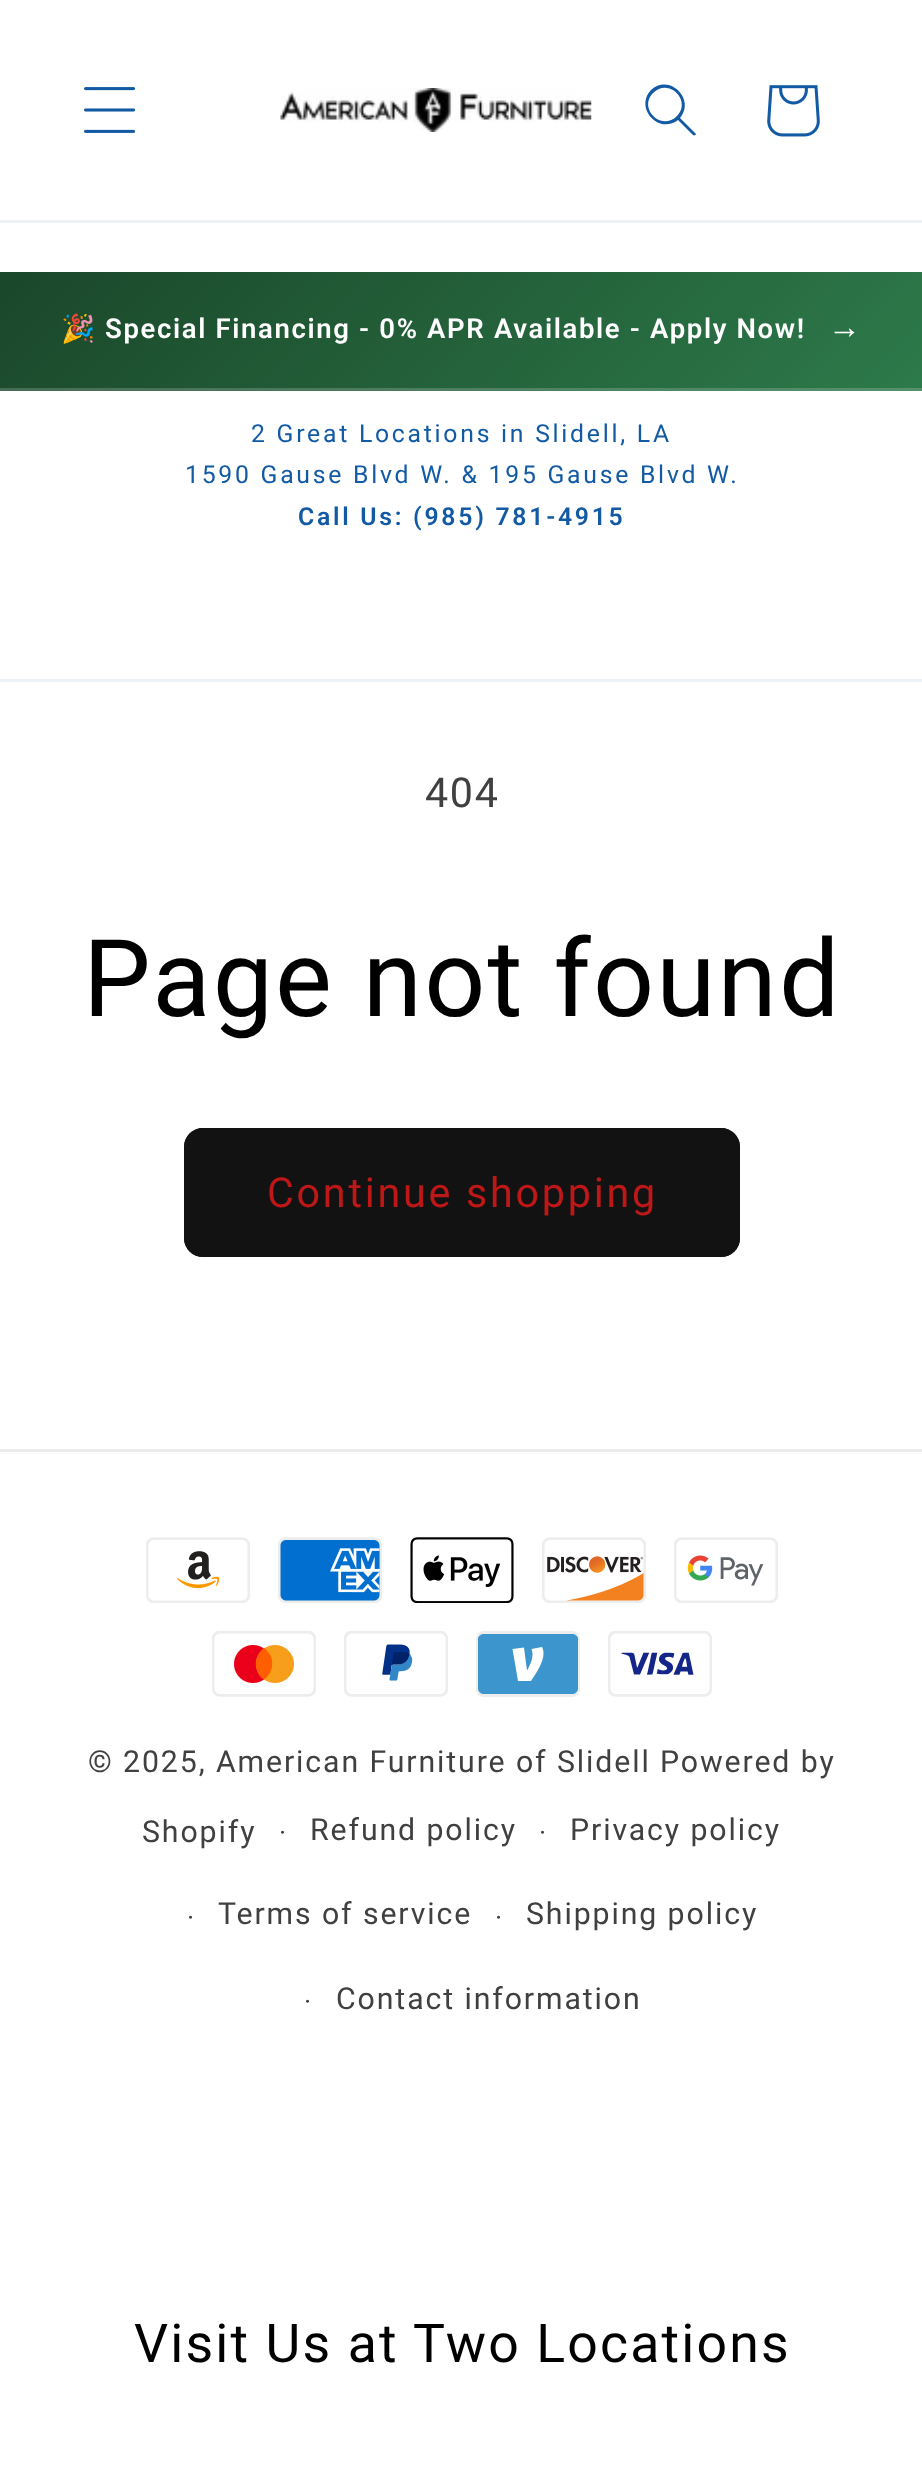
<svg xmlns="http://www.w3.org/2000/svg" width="922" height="2480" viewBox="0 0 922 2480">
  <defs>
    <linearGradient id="g1" gradientUnits="userSpaceOnUse" x1="202" y1="70" x2="722" y2="590"><stop offset="0" stop-color="rgb(26,71,42)"/><stop offset="1" stop-color="rgb(45,122,74)"/></linearGradient>
    <linearGradient id="g2" gradientUnits="userSpaceOnUse" x1="202" y1="186" x2="722" y2="705"><stop offset="0" stop-color="rgb(72,108,85)"/><stop offset="1" stop-color="rgb(87,149,110)"/></linearGradient>
  </defs>
  <rect width="100%" height="100%" fill="rgb(255,255,255)"/>
  <rect x="0" y="220" width="922" height="3" fill="rgb(236,242,248)"/>
  <image x="84" y="87" width="52" height="46" href="pic1.png"/>
  <image x="280" y="88" width="312" height="44" href="pic2.png"/>
  <path d="M677 116C661 132 638 108 653 93C669 77 692 101 677 116M678 120C659 135 634 108 651 90C669 73 696 99 680 118L696 134C696 135 694 136 693 135Z" fill="rgb(18,90,164)" fill-rule="evenodd"/>
  <image x="767" y="85" width="53" height="52" href="pic3.png"/>
  <rect x="0" y="272" width="922" height="116" fill="url(#g1)"/>
  <rect x="0" y="388" width="922" height="3" fill="url(#g2)"/>
  <text x="61" y="338" font-family="Noto Color Emoji" font-size="27.5" letter-spacing="1.65" fill="rgb(255,255,255)">🎉</text>
  <text x="105" y="338" font-family="Roboto" font-size="27.5" font-weight="600" letter-spacing="1.65" fill="rgb(255,255,255)">Special Financing - 0% APR Available - Apply Now!</text>
  <text x="828" y="338" font-family="Liberation Sans" font-size="33" font-weight="bold" letter-spacing="1.65" fill="rgb(255,255,255)">→</text>
  <rect x="0" y="679" width="922" height="3" fill="rgb(236,242,248)"/>
  <g font-family="Roboto" font-size="24.75" letter-spacing="2.75" fill="rgb(18,90,164)">
    <text x="251" y="442">2 Great Locations in Slidell, LA</text>
    <text x="185" y="483">1590 Gause Blvd W. &amp; 195 Gause Blvd W.</text>
  </g>
  <text x="298" y="525" font-family="Roboto" font-size="24.75" font-weight="600" letter-spacing="2.75" fill="rgb(18,90,164)">Call Us: (985) 781-4915</text>
  <text x="425" y="807" font-family="Roboto" font-size="41.25" letter-spacing="1.65" fill="rgb(64,64,64)">404</text>
  <text x="83" y="1016" font-family="Roboto" font-size="107.25" letter-spacing="2.15" fill="rgb(0,0,0)">Page not found</text>
  <rect x="184" y="1128" width="556" height="129" rx="19" fill="rgb(18,18,18)"/>
  <rect x="185.5" y="1129.5" width="553" height="126" rx="17.5" fill="none" stroke="rgb(18,18,18)" stroke-width="3"/>
  <text x="267" y="1207" font-family="Roboto" font-size="41.25" letter-spacing="2.75" fill="rgb(190,23,23)">Continue shopping</text>
  <rect x="0" y="1449" width="922" height="3" fill="rgb(235,235,235)"/>
  <image x="146" y="1537" width="104" height="66" href="pic4.png"/>
  <image x="278" y="1537" width="104" height="66" href="pic5.png"/>
  <image x="410" y="1537" width="104" height="66" href="pic6.png"/>
  <image x="542" y="1537" width="104" height="66" href="pic7.png"/>
  <image x="674" y="1537" width="104" height="66" href="pic8.png"/>
  <image x="212" y="1631" width="104" height="66" href="pic9.png"/>
  <image x="344" y="1631" width="104" height="66" href="pic10.png"/>
  <rect x="476" y="1631" width="104" height="66" rx="8" fill="rgb(237,237,237)"/>
  <path d="M572 1634C575 1634 578 1636 578 1639V1688C578 1692 575 1694 572 1694H484C481 1694 478 1692 478 1688V1639C478 1636 481 1634 484 1634H572" fill="rgb(61,149,206)" fill-rule="evenodd"/>
  <path d="M543.5 1653.5C543.5 1662 536.5 1673 531 1681H518L512.5 1649L524 1647.5L527 1670.5C530.5 1664.5 534.5 1656 531.5 1649L542 1647C543 1649 543.5 1651 543.5 1653.5Z" fill="rgb(255,255,255)"/>
  <image x="608" y="1631" width="104" height="66" href="pic11.png"/>
  <g font-family="Roboto" font-size="30.25" letter-spacing="1.9" fill="rgb(64,64,64)">
    <text x="88" y="1772">© 2025, American Furniture of Slidell</text>
    <text x="660" y="1772">Powered by</text>
  </g>
  <text x="279" y="1842" font-family="Roboto" font-size="27.5" letter-spacing="1.9" fill="rgb(64,64,64)">·</text>
  <text x="310" y="1840" font-family="Roboto" font-size="30.25" letter-spacing="1.9" fill="rgb(64,64,64)">Refund policy</text>
  <text x="539" y="1842" font-family="Roboto" font-size="27.5" letter-spacing="1.9" fill="rgb(64,64,64)">·</text>
  <text x="570" y="1840" font-family="Roboto" font-size="30.25" letter-spacing="1.9" fill="rgb(64,64,64)">Privacy policy</text>
  <text x="187" y="1927" font-family="Roboto" font-size="27.5" letter-spacing="1.9" fill="rgb(64,64,64)">·</text>
  <text x="218" y="1924" font-family="Roboto" font-size="30.25" letter-spacing="1.9" fill="rgb(64,64,64)">Terms of service</text>
  <text x="495" y="1927" font-family="Roboto" font-size="27.5" letter-spacing="1.9" fill="rgb(64,64,64)">·</text>
  <text x="526" y="1924" font-family="Roboto" font-size="30.25" letter-spacing="1.9" fill="rgb(64,64,64)">Shipping policy</text>
  <text x="304" y="2011" font-family="Roboto" font-size="27.5" letter-spacing="1.9" fill="rgb(64,64,64)">·</text>
  <g font-family="Roboto" font-size="30.25" letter-spacing="1.9" fill="rgb(64,64,64)">
    <text x="336" y="2009">Contact information</text>
    <text x="142" y="1842">Shopify</text>
  </g>
  <text x="134" y="2362" font-family="Roboto" font-size="53.6" letter-spacing="2.15" fill="rgb(0,0,0)">Visit Us at Two Locations</text>
</svg>
